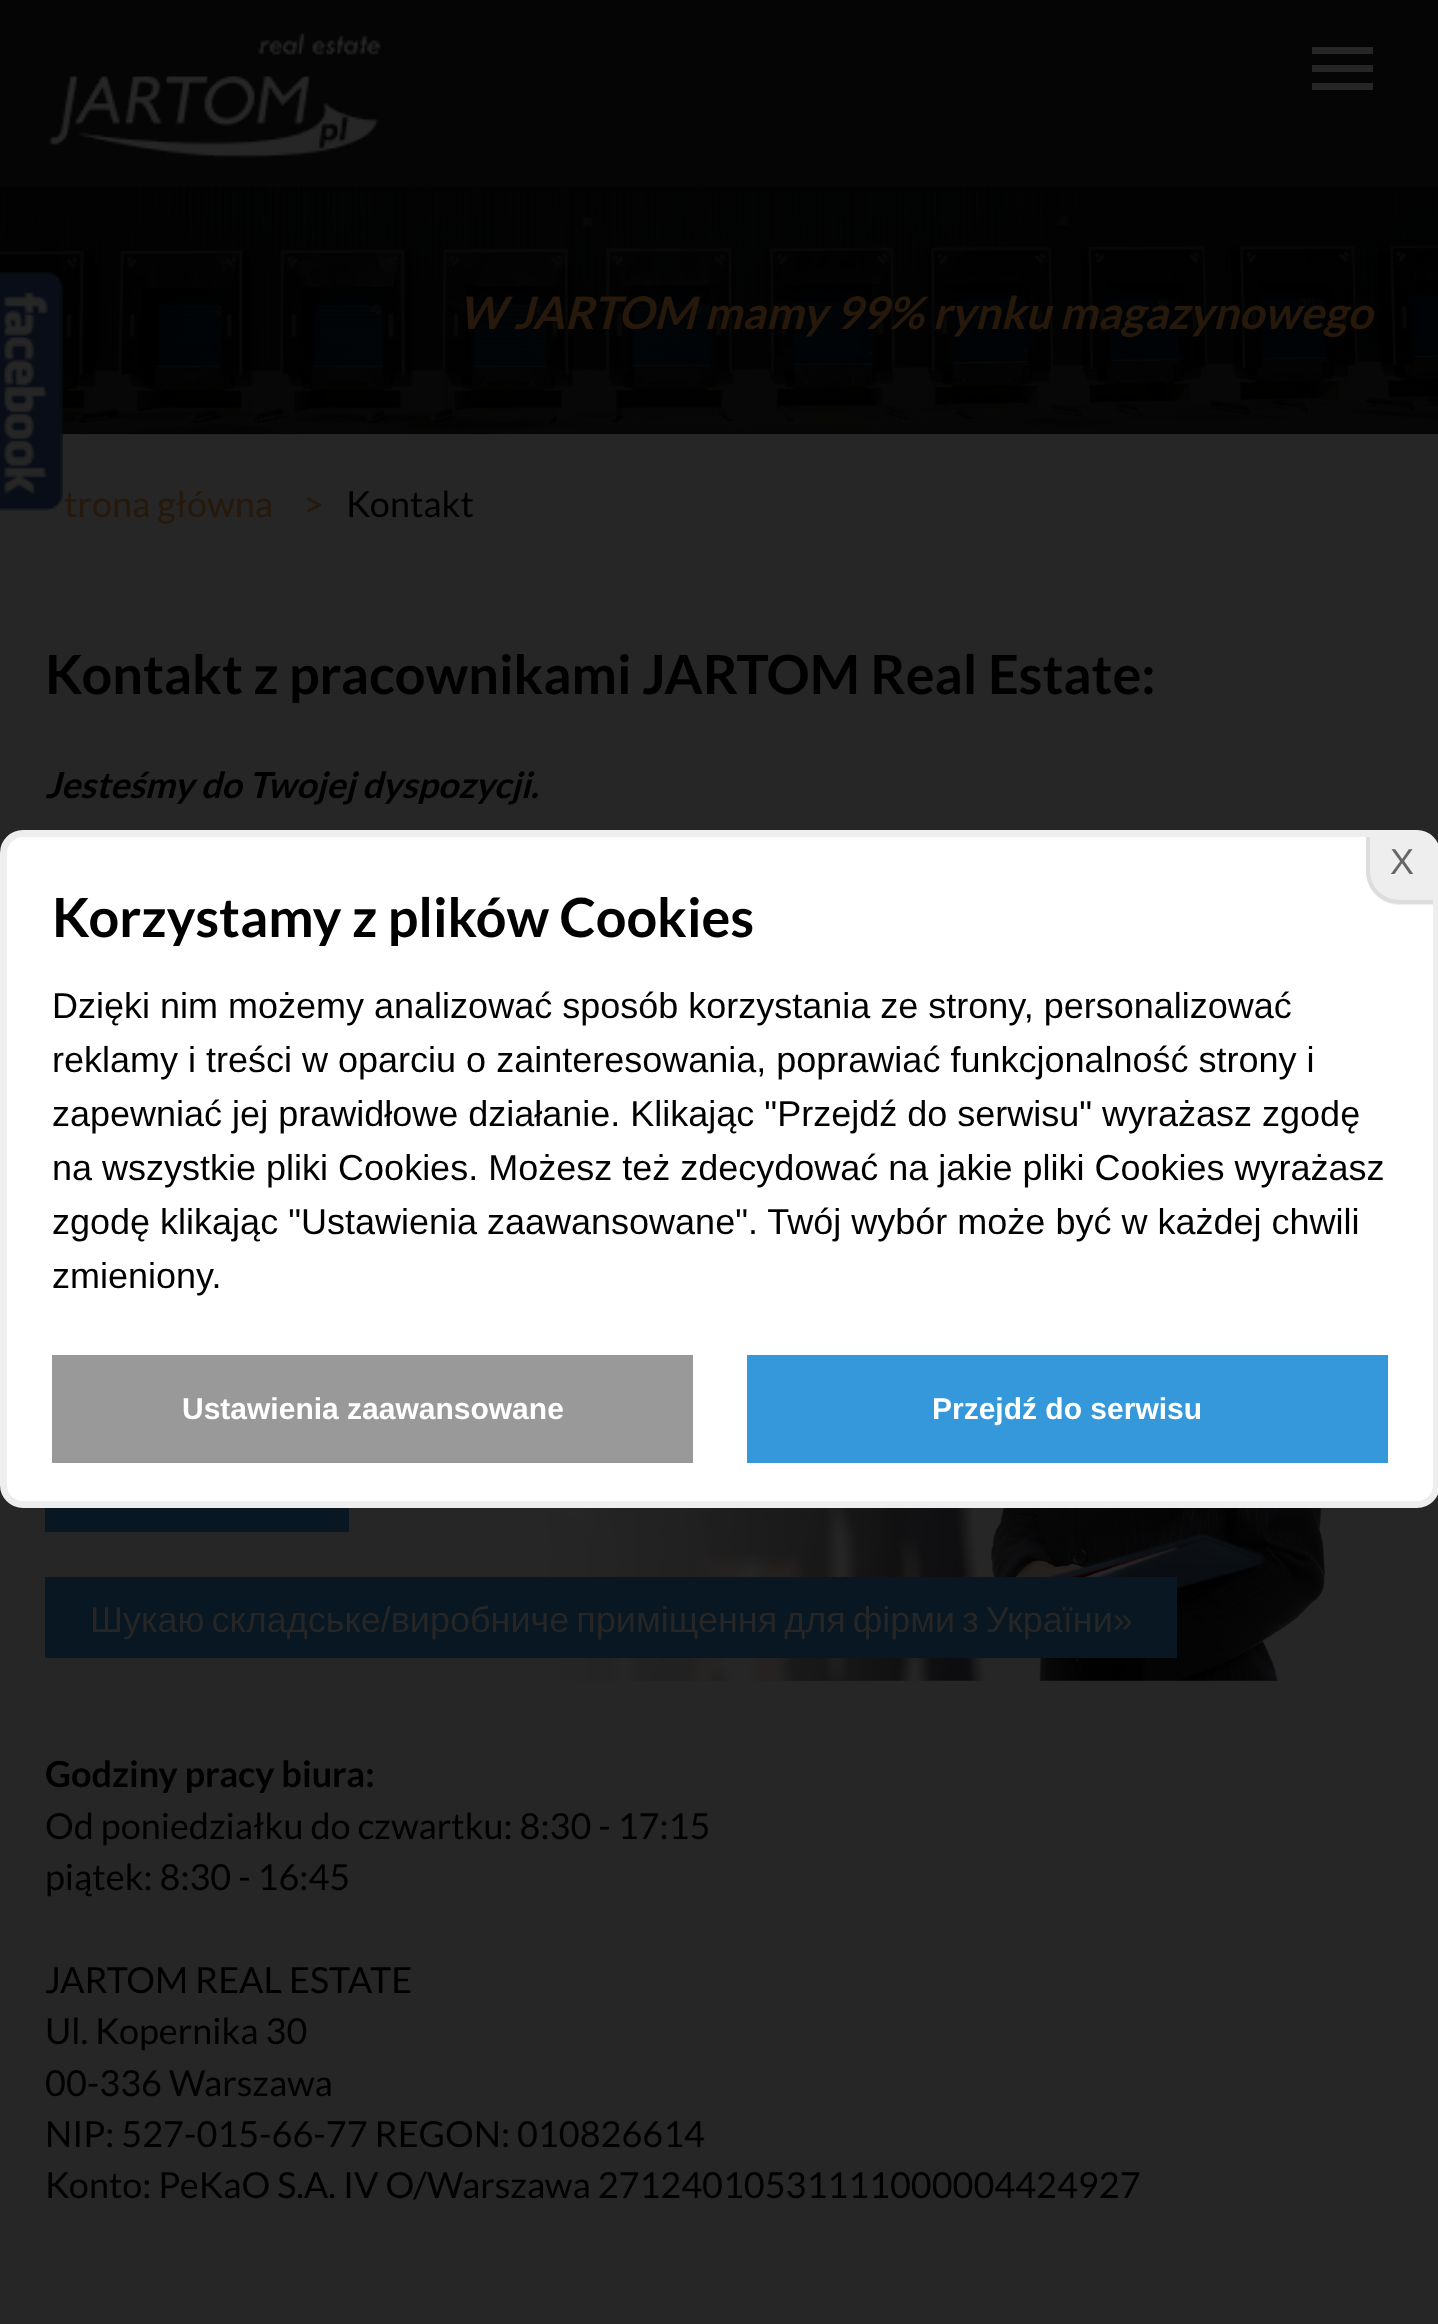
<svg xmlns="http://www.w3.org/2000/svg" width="1438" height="2324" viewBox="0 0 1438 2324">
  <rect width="100%" height="100%" fill="rgb(38,38,38)"/>
  <image x="0" y="187" width="1438" height="248" href="pic2.png"/>
  <image x="0" y="272" width="63" height="239" href="pic1.png"/>
  <rect x="0" y="0" width="1438" height="187" fill="rgb(5,5,5)"/>
  <image x="49" y="33" width="332" height="125" href="pic3.png"/>
  <rect x="1312" y="65" width="61" height="7" fill="rgb(38,38,38)"/>
  <rect x="1312" y="47" width="61" height="7" fill="rgb(38,38,38)"/>
  <rect x="1312" y="83" width="61" height="7" fill="rgb(38,38,38)"/>
  <text x="458" y="329" font-family="Lato" font-size="45" font-weight="bold" font-style="italic" fill="rgb(38,24,10)">W JARTOM mamy 99% rynku magazynowego</text>
  <g font-family="Lato" font-size="36" fill="rgb(38,24,10)">
    <text x="64" y="517">trona główna</text>
    <text x="303" y="517">&gt;</text>
  </g>
  <text x="346" y="517" font-family="Lato" font-size="36" fill="rgb(0,0,0)">Kontakt</text>
  <text x="45" y="694" font-family="Lato" font-size="54" font-weight="bold" fill="rgb(0,0,0)">Kontakt z pracownikami JARTOM Real Estate:</text>
  <text x="45" y="798" font-family="Lato" font-size="36" font-weight="bold" font-style="italic" fill="rgb(0,0,0)">Jesteśmy do Twojej dyspozycji.</text>
  <image x="546" y="1508" width="780" height="173" href="pic4.png"/>
  <rect x="45" y="1508" width="304" height="24" fill="rgb(8,23,33)"/>
  <rect x="45" y="1577" width="1132" height="81" fill="rgb(8,23,33)"/>
  <text x="90" y="1632" word-spacing="-3" font-family="Liberation Sans" font-size="36" fill="rgb(38,38,38)">Шукаю складське/виробниче приміщення для фірми з України»</text>
  <text x="45" y="1787" font-family="Lato" font-size="36" font-weight="bold" fill="rgb(0,0,0)">Godziny pracy biura:</text>
  <g font-family="Lato" font-size="36" fill="rgb(0,0,0)">
    <text>
      <tspan x="45" y="1839">Od poniedziałku do czwartku: 8:30 - 17:15</tspan>
      <tspan x="45" y="1890">piątek: 8:30 - 16:45</tspan>
    </text>
    <text>
      <tspan x="45" y="1993">JARTOM REAL ESTATE</tspan>
      <tspan x="45" y="2044">Ul. Kopernika 30</tspan>
      <tspan x="45" y="2096">00-336 Warszawa</tspan>
      <tspan x="45" y="2147">NIP: 527-015-66-77 REGON: 010826614</tspan>
      <tspan x="45" y="2198">Konto: PeKaO S.A. IV O/Warszawa 27124010531111000004424927</tspan>
    </text>
  </g>
  <rect x="3.5" y="833.5" width="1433" height="671" rx="19.5" fill="rgb(255,255,255)" stroke="rgb(238,238,238)" stroke-width="7"/>
  <path d="M1366 837H1433V905H1399.5C1381 905 1366 890 1366 871.5Z" fill="rgb(238,238,238)"/>
  <path d="M1366 837H1433V904H1400C1381 904 1366 889 1366 871ZM1370 837H1433V900H1400C1383 900 1370 887 1370 871Z" fill="rgb(221,221,221)" fill-rule="evenodd"/>
  <text x="1390" y="874" font-family="Liberation Sans" font-size="36" fill="rgb(102,102,102)">X</text>
  <text x="52" y="937" font-family="Lato" font-size="54" font-weight="bold" fill="rgb(0,0,0)">Korzystamy z plików Cookies</text>
  <g font-family="Liberation Sans" font-size="36" fill="rgb(0,0,0)">
    <text>
      <tspan x="52" y="1018">Dzięki nim możemy analizować sposób korzystania ze strony, personalizować</tspan>
      <tspan x="52" y="1072">reklamy i treści w oparciu o zainteresowania, poprawiać funkcjonalność strony i</tspan>
      <tspan x="52" y="1126">zapewniać jej prawidłowe działanie. Klikając "Przejdź do serwisu" wyrażasz zgodę</tspan>
      <tspan x="52" y="1180">na wszystkie pliki Cookies. Możesz też zdecydować na jakie pliki Cookies wyrażasz</tspan>
      <tspan x="52" y="1234">zgodę klikając "Ustawienia zaawansowane". Twój wybór może być w każdej chwili</tspan>
      <tspan x="52" y="1288">zmieniony.</tspan>
    </text>
  </g>
  <rect x="52" y="1355" width="641" height="108" fill="rgb(153,153,153)"/>
  <text x="182" y="1419" font-family="Liberation Sans" font-size="30" font-weight="bold" fill="rgb(255,255,255)">Ustawienia zaawansowane</text>
  <rect x="747" y="1355" width="641" height="108" fill="rgb(52,152,219)"/>
  <text x="932" y="1419" font-family="Liberation Sans" font-size="30" font-weight="bold" fill="rgb(255,255,255)">Przejdź do serwisu</text>
</svg>
